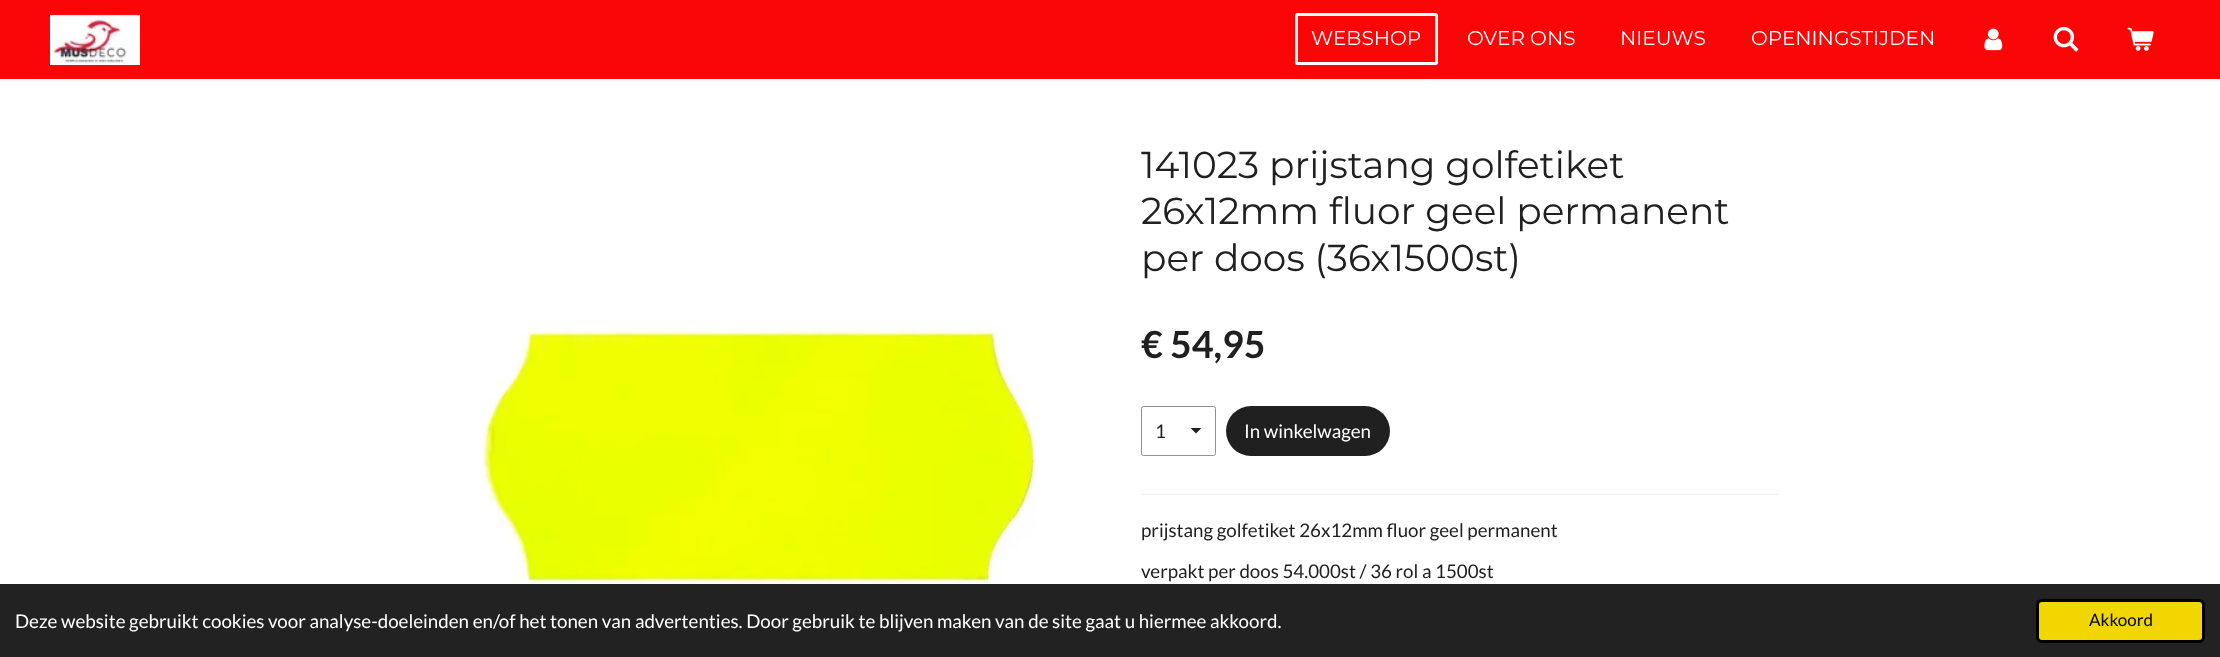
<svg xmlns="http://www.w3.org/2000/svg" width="2220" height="657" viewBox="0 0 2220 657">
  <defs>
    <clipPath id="clip1"><rect x="1190" y="428" width="13" height="6"/></clipPath>
  </defs>
  <rect width="100%" height="100%" fill="rgb(255,255,255)"/>
  <rect x="0" y="0" width="2220" height="79" fill="rgb(251,6,6)"/>
  <image x="50" y="14" width="90" height="51" href="pic1.png"/>
  <rect x="1296.5" y="14.5" width="140" height="49" rx="1" fill="none" stroke="rgb(255,255,255)" stroke-width="3"/>
  <g font-family="Montserrat" font-size="20" fill="rgb(255,255,255)">
    <text x="1311" y="45">WEBSHOP</text>
    <text x="1467" y="45">OVER ONS</text>
    <text x="1620" y="45">NIEUWS</text>
    <text x="1751" y="45">OPENINGSTIJDEN</text>
  </g>
  <image x="1984" y="28" width="19" height="23" href="pic2.png"/>
  <image x="2053" y="26" width="26" height="26" href="pic3.png"/>
  <image x="2127" y="27" width="27" height="24" href="pic4.png"/>
  <g font-family="Montserrat" font-size="37.5" fill="rgb(32,32,32)">
    <text>
      <tspan x="1141" y="178">141023 prijstang golfetiket</tspan>
      <tspan x="1141" y="224">26x12mm fluor geel permanent</tspan>
      <tspan x="1141" y="271">per doos (36x1500st)</tspan>
    </text>
  </g>
  <image x="482" y="328" width="555" height="256" href="pic5.png"/>
  <text x="1141" y="358" font-family="Lato" font-size="37.5" font-weight="bold" fill="rgb(32,32,32)">€ 54,95</text>
  <g clip-path="url(#clip1)">
    <path d="M1196 433.5L1190 427.5H1202Z" fill="rgb(32,32,32)"/>
  </g>
  <rect x="1141.5" y="406.5" width="74" height="49" rx="2" fill="none" stroke="rgb(144,144,144)"/>
  <text x="1155" y="438" font-family="Lato" font-size="18.75" fill="rgb(32,32,32)">1</text>
  <rect x="1226" y="406" width="164" height="50" rx="25" fill="rgb(32,32,32)"/>
  <text x="1244" y="438" font-family="Lato" font-size="18.75" fill="rgb(255,255,255)">In winkelwagen</text>
  <rect x="1141" y="494" width="638" height="1" fill="rgb(239,239,239)"/>
  <g font-family="Lato" font-size="18.75" fill="rgb(32,32,32)">
    <text x="1141" y="537">prijstang golfetiket 26x12mm fluor geel permanent</text>
    <text x="1141" y="578">verpakt per doos 54.000st / 36 rol a 1500st</text>
  </g>
  <rect x="0" y="584" width="2220" height="73" fill="rgb(34,34,34)"/>
  <text x="15" y="628" font-family="Lato" font-size="18.75" fill="rgb(255,255,255)">Deze website gebruikt cookies voor analyse-doeleinden en/of het tonen van advertenties. Door gebruik te blijven maken van de site gaat u hiermee akkoord.</text>
  <rect x="2037.5" y="600.5" width="166" height="41" rx="4.5" fill="rgb(241,214,0)" stroke="rgb(0,0,0)" stroke-width="3"/>
  <text x="2089" y="626" font-family="Lato" font-size="17" fill="rgb(0,0,0)">Akkoord</text>
</svg>
